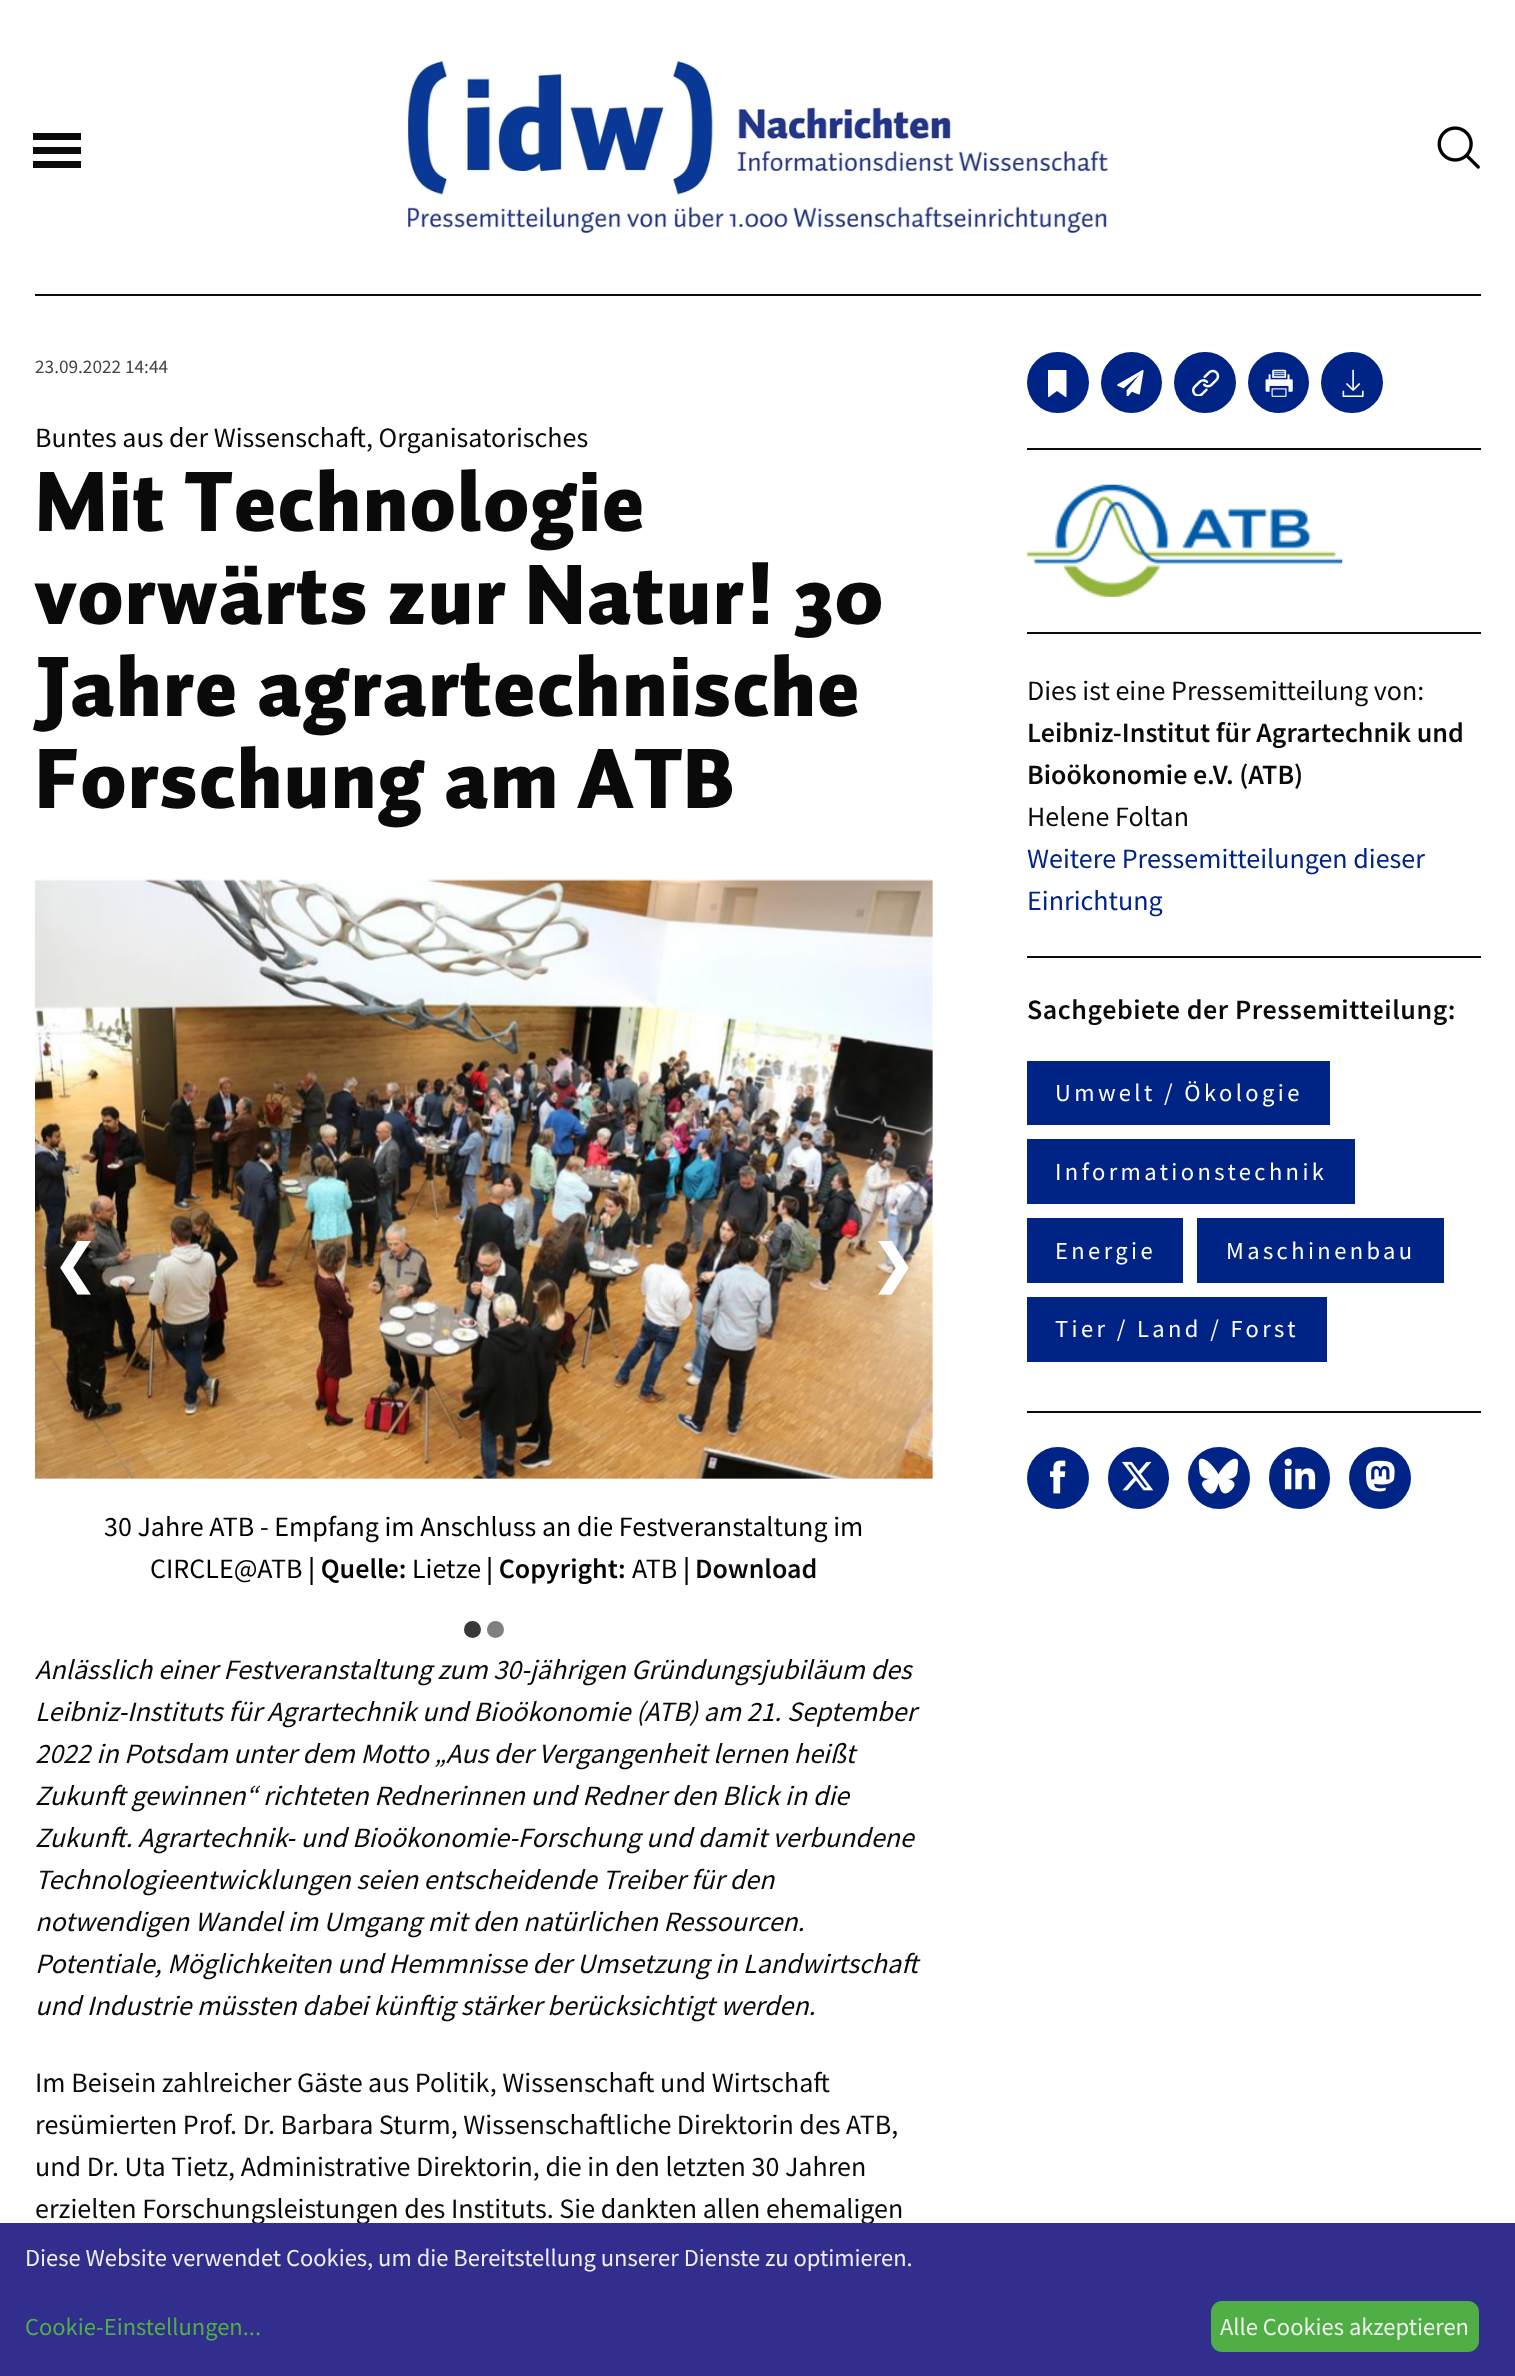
<svg xmlns="http://www.w3.org/2000/svg" width="1515" height="2376" viewBox="0 0 1515 2376">
  <rect width="100%" height="100%" fill="rgb(255,255,255)"/>
  <rect x="35" y="294" width="1446" height="2" fill="rgb(10,10,10)"/>
  <rect x="33" y="147" width="48" height="7" fill="rgb(10,10,10)"/>
  <rect x="33" y="133" width="48" height="7" fill="rgb(10,10,10)"/>
  <rect x="33" y="161" width="48" height="7" fill="rgb(10,10,10)"/>
  <image x="408" y="61" width="700" height="172" href="pic1.png"/>
  <image x="1437" y="126" width="43" height="43" href="pic2.png"/>
  <text x="35" y="373" font-family="Source Sans Pro" font-size="19.25" fill="rgb(68,68,68)">23.09.2022 14:44</text>
  <text x="35" y="447" font-family="Source Sans Pro" font-size="28" fill="rgb(10,10,10)">Buntes aus der Wissenschaft, Organisatorisches</text>
  <g font-family="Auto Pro" font-size="84" font-weight="900" letter-spacing="1.4" fill="rgb(10,10,10)">
    <text>
      <tspan x="35" y="531">Mit Technologie</tspan>
      <tspan x="35" y="624">vorwärts zur Natur! 30</tspan>
      <tspan x="35" y="716">Jahre agrartechnische</tspan>
      <tspan x="35" y="808">Forschung am ATB</tspan>
    </text>
  </g>
  <image x="35" y="879" width="898" height="600" href="pic3.png"/>
  <g font-family="DejaVu Sans" font-size="52" font-weight="bold" fill="rgb(255,255,255)">
    <text x="53" y="1282">❮</text>
    <text x="871" y="1282">❯</text>
  </g>
  <g font-family="Source Sans Pro" font-size="28" fill="rgb(0,0,0)">
    <text x="104" y="1536">30 Jahre ATB - Empfang im Anschluss an die Festveranstaltung im</text>
    <text x="150" y="1578">CIRCLE@ATB</text>
  </g>
  <text x="308" y="1578" font-family="Source Sans Pro" font-size="28" font-weight="600" fill="rgb(0,0,0)">| Quelle:</text>
  <text x="412" y="1578" font-family="Source Sans Pro" font-size="28" fill="rgb(0,0,0)">Lietze</text>
  <text x="486" y="1578" font-family="Source Sans Pro" font-size="28" font-weight="600" fill="rgb(0,0,0)">| Copyright:</text>
  <text x="632" y="1578" font-family="Source Sans Pro" font-size="28" fill="rgb(0,0,0)">ATB</text>
  <text x="683" y="1578" font-family="Source Sans Pro" font-size="28" font-weight="600" fill="rgb(0,0,0)">|</text>
  <text x="695" y="1578" font-family="Source Sans Pro" font-size="28" font-weight="600" fill="rgb(10,10,10)">Download</text>
  <circle cx="472.5" cy="1629.5" r="8.5" fill="rgb(56,56,56)"/>
  <circle cx="495.5" cy="1629.5" r="8.5" fill="rgb(128,128,128)"/>
  <g font-family="Source Sans Pro" font-size="28" font-style="italic" fill="rgb(10,10,10)">
    <text>
      <tspan x="35" y="1679">Anlässlich einer Festveranstaltung zum 30-jährigen Gründungsjubiläum des</tspan>
      <tspan x="35" y="1721">Leibniz-Instituts für Agrartechnik und Bioökonomie (ATB) am 21. September</tspan>
      <tspan x="35" y="1763">2022 in Potsdam unter dem Motto „Aus der Vergangenheit lernen heißt</tspan>
      <tspan x="35" y="1805">Zukunft gewinnen“ richteten Rednerinnen und Redner den Blick in die</tspan>
      <tspan x="35" y="1847">Zukunft. Agrartechnik- und Bioökonomie-Forschung und damit verbundene</tspan>
      <tspan x="35" y="1889">Technologieentwicklungen seien entscheidende Treiber für den</tspan>
      <tspan x="35" y="1931">notwendigen Wandel im Umgang mit den natürlichen Ressourcen.</tspan>
      <tspan x="35" y="1973">Potentiale, Möglichkeiten und Hemmnisse der Umsetzung in Landwirtschaft</tspan>
      <tspan x="35" y="2015">und Industrie müssten dabei künftig stärker berücksichtigt werden.</tspan>
    </text>
  </g>
  <g font-family="Source Sans Pro" font-size="28" fill="rgb(10,10,10)">
    <text>
      <tspan x="35" y="2092">Im Beisein zahlreicher Gäste aus Politik, Wissenschaft und Wirtschaft</tspan>
      <tspan x="35" y="2134">resümierten Prof. Dr. Barbara Sturm, Wissenschaftliche Direktorin des ATB,</tspan>
      <tspan x="35" y="2176">und Dr. Uta Tietz, Administrative Direktorin, die in den letzten 30 Jahren</tspan>
      <tspan x="35" y="2218">erzielten Forschungsleistungen des Instituts. Sie dankten allen ehemaligen</tspan>
    </text>
  </g>
  <rect x="1027" y="448" width="454" height="2" fill="rgb(10,10,10)"/>
  <rect x="1027" y="352" width="62" height="61" rx="30.5" fill="rgb(0,36,134)"/>
  <path d="M1066.5 370V397H1065.5L1057 391L1049 397H1048V370Z" fill="rgb(255,255,255)"/>
  <circle cx="1131.5" cy="382.5" r="30.5" fill="rgb(0,36,134)"/>
  <image x="1117" y="370" width="27" height="26" href="pic4.png"/>
  <rect x="1174" y="352" width="62" height="61" rx="30.5" fill="rgb(0,36,134)"/>
  <image x="1192" y="369" width="28" height="27" href="pic5.png"/>
  <circle cx="1278.5" cy="382.5" r="30.5" fill="rgb(0,36,134)"/>
  <image x="1265" y="369" width="28" height="28" href="pic6.png"/>
  <rect x="1321" y="352" width="62" height="61" rx="30.5" fill="rgb(0,36,134)"/>
  <image x="1342" y="369" width="22" height="28" href="pic7.png"/>
  <rect x="1027" y="632" width="454" height="2" fill="rgb(10,10,10)"/>
  <image x="1026" y="484" width="317" height="113" href="pic8.png"/>
  <rect x="1027" y="956" width="454" height="2" fill="rgb(10,10,10)"/>
  <text x="1027" y="700" font-family="Source Sans Pro" font-size="28" fill="rgb(10,10,10)">Dies ist eine Pressemitteilung von:</text>
  <g font-family="Source Sans Pro" font-size="28" font-weight="600" fill="rgb(10,10,10)">
    <text>
      <tspan x="1027" y="742">Leibniz-Institut für Agrartechnik und</tspan>
      <tspan x="1027" y="784">Bioökonomie e.V. (ATB)</tspan>
    </text>
  </g>
  <text x="1027" y="826" font-family="Source Sans Pro" font-size="28" fill="rgb(10,10,10)">Helene Foltan</text>
  <g font-family="Source Sans Pro" font-size="28" fill="rgb(0,36,134)">
    <text>
      <tspan x="1027" y="868">Weitere Pressemitteilungen dieser</tspan>
      <tspan x="1027" y="910">Einrichtung</tspan>
    </text>
  </g>
  <rect x="1027" y="1411" width="454" height="2" fill="rgb(10,10,10)"/>
  <text x="1027" y="1019" font-family="Source Sans Pro" font-size="28" font-weight="600" letter-spacing="0.55" fill="rgb(10,10,10)">Sachgebiete der Pressemitteilung:</text>
  <rect x="1027" y="1061" width="303" height="64" fill="rgb(0,36,134)"/>
  <text x="1055" y="1101" font-family="Source Sans Pro" font-size="24.5" letter-spacing="3.4" fill="rgb(255,255,255)">Umwelt / Ökologie</text>
  <rect x="1027" y="1139" width="328" height="65" fill="rgb(0,36,134)"/>
  <text x="1055" y="1180" font-family="Source Sans Pro" font-size="24.5" letter-spacing="3.4" fill="rgb(255,255,255)">Informationstechnik</text>
  <rect x="1027" y="1218" width="156" height="65" fill="rgb(0,36,134)"/>
  <text x="1055" y="1259" font-family="Source Sans Pro" font-size="24.5" letter-spacing="3.4" fill="rgb(255,255,255)">Energie</text>
  <rect x="1197" y="1218" width="247" height="65" fill="rgb(0,36,134)"/>
  <text x="1226" y="1259" font-family="Source Sans Pro" font-size="24.5" letter-spacing="3.4" fill="rgb(255,255,255)">Maschinenbau</text>
  <rect x="1027" y="1297" width="300" height="65" fill="rgb(0,36,134)"/>
  <text x="1055" y="1337" font-family="Source Sans Pro" font-size="24.5" letter-spacing="3.4" fill="rgb(255,255,255)">Tier / Land / Forst</text>
  <circle cx="1058" cy="1478" r="31" fill="rgb(0,36,134)"/>
  <image x="1050" y="1460" width="16" height="34" href="pic9.png"/>
  <rect x="1108" y="1447" width="61" height="62" rx="30.5" fill="rgb(0,36,134)"/>
  <image x="1122" y="1461" width="32" height="30" href="pic10.png"/>
  <circle cx="1219" cy="1478" r="31" fill="rgb(0,36,134)"/>
  <image x="1198" y="1458" width="41" height="36" href="pic11.png"/>
  <rect x="1269" y="1447" width="61" height="62" rx="30.5" fill="rgb(0,36,134)"/>
  <image x="1284" y="1458" width="32" height="32" href="pic12.png"/>
  <circle cx="1380" cy="1478" r="31" fill="rgb(0,36,134)"/>
  <image x="1366" y="1460" width="29" height="32" href="pic13.png"/>
  <rect x="0" y="2223" width="1515" height="153" fill="rgb(50,46,141)"/>
  <text x="25" y="2266" font-family="Source Sans Pro" font-size="24.5" fill="rgb(238,238,238)">Diese Website verwendet Cookies, um die Bereitstellung unserer Dienste zu optimieren.</text>
  <text x="25" y="2335" font-family="Source Sans Pro" font-size="24.5" fill="rgb(79,175,69)">Cookie-Einstellungen...</text>
  <rect x="1211" y="2301" width="268" height="51" rx="11" fill="rgb(79,175,69)"/>
  <text x="1220" y="2335" font-family="Source Sans Pro" font-size="24.5" fill="rgb(238,238,238)">Alle Cookies akzeptieren</text>
</svg>
